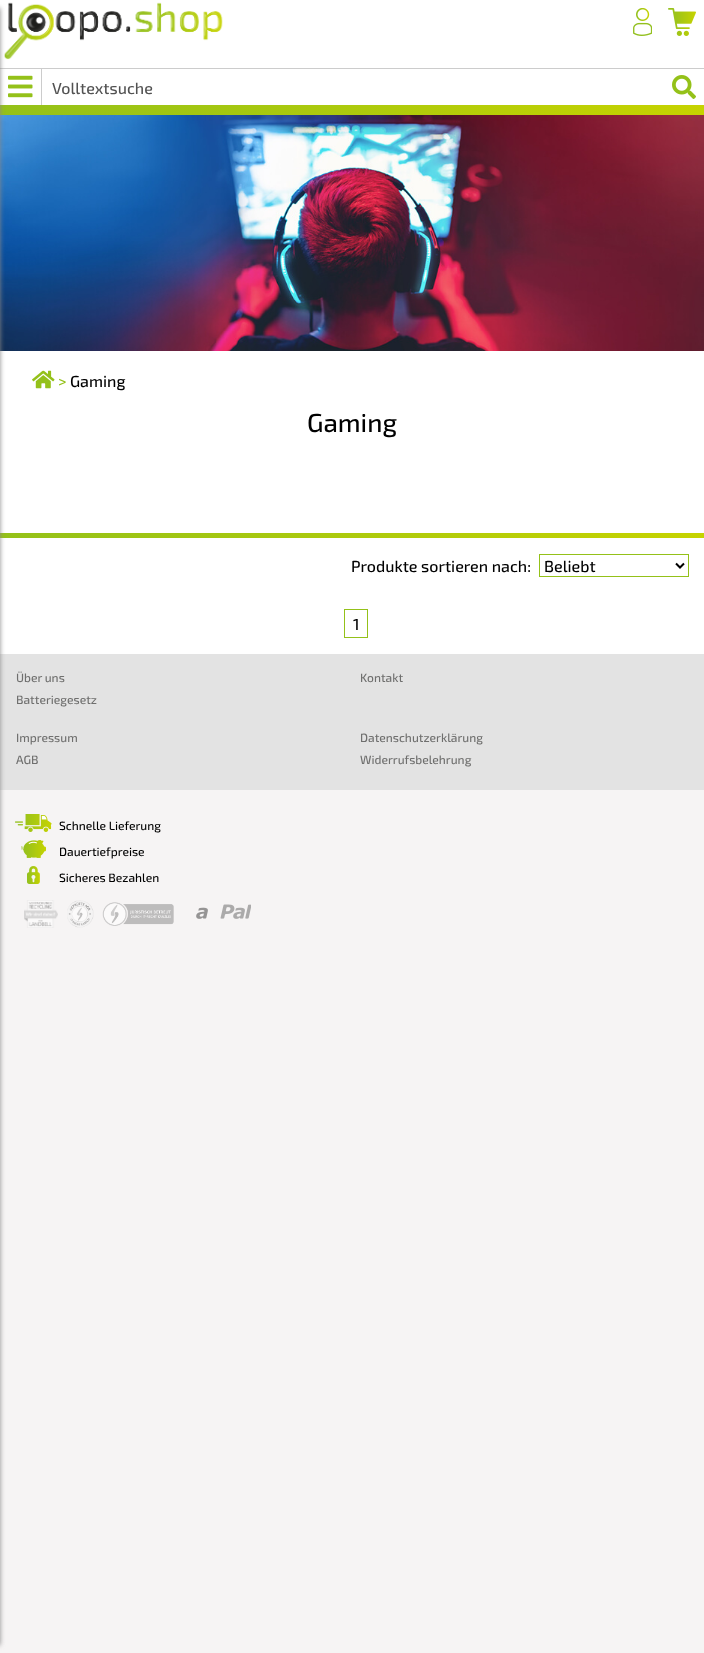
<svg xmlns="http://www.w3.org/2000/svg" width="704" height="1653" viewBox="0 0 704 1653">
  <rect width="100%" height="100%" fill="rgb(246,244,244)"/>
  <rect x="0" y="0" width="704" height="105" fill="rgb(255,255,255)"/>
  <image x="0" y="105" width="704" height="10" href="pic1.png"/>
  <image x="4" y="2" width="219" height="58" href="pic2.png"/>
  <image x="633" y="8" width="19" height="28" href="pic3.png"/>
  <image x="668" y="8" width="28" height="28" href="pic4.png"/>
  <rect x="0" y="68" width="704" height="1" fill="rgb(204,204,204)"/>
  <rect x="41" y="69" width="1" height="36" fill="rgb(204,204,204)"/>
  <image x="8" y="75" width="25" height="23" href="pic5.png"/>
  <text x="52" y="94" font-family="'Exo 2'" font-size="16" font-weight="500" fill="rgb(82,82,82)">Volltextsuche</text>
  <image x="672" y="75" width="24" height="24" href="pic6.png"/>
  <rect x="0" y="351" width="704" height="303" fill="rgb(255,255,255)"/>
  <image x="0" y="533" width="704" height="5" href="pic7.png"/>
  <image x="0" y="115" width="704" height="236" href="pic8.png"/>
  <rect x="0" y="654" width="704" height="136" fill="rgb(227,227,227)"/>
  <rect x="-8" y="8" width="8" height="1637" fill="rgb(136,136,136)" filter="blur(2.5px)"/>
  <image x="32" y="370" width="23" height="19" href="pic9.png"/>
  <text x="58" y="387" font-family="'Exo 2'" font-size="16" font-weight="500" fill="rgb(148,193,25)">&gt;</text>
  <text x="70" y="387" font-family="'Exo 2'" font-size="16" font-weight="500" fill="rgb(0,0,0)">Gaming</text>
  <text x="307" y="432" font-family="'Exo 2'" font-size="26" font-weight="500" fill="rgb(0,0,0)">Gaming</text>
  <text x="351" y="572" font-family="'Exo 2'" font-size="16" font-weight="500" fill="rgb(0,0,0)">Produkte sortieren nach:</text>
  <rect x="539.5" y="554.5" width="149" height="22" fill="none" stroke="rgb(148,193,25)"/>
  <path d="M676 563.5L680 567.5L684 563.5" fill="none" stroke="rgb(0,0,0)" stroke-width="2"/>
  <text x="544" y="572" font-family="'Exo 2'" font-size="16" font-weight="500" fill="rgb(0,0,0)">Beliebt</text>
  <rect x="344.5" y="609.5" width="23" height="28" fill="none" stroke="rgb(148,193,25)"/>
  <text x="353" y="630" font-family="'Exo 2'" font-size="16" font-weight="500" fill="rgb(0,0,0)">1</text>
  <g font-family="'Exo 2'" font-size="12" font-weight="500" fill="rgb(111,111,110)">
    <text>
      <tspan x="16" y="682">Über uns</tspan>
      <tspan x="16" y="704">Batteriegesetz</tspan>
    </text>
    <text x="360" y="682">Kontakt</text>
    <text>
      <tspan x="16" y="742">Impressum</tspan>
      <tspan x="16" y="764">AGB</tspan>
    </text>
    <text>
      <tspan x="360" y="742">Datenschutzerklärung</tspan>
      <tspan x="360" y="764">Widerrufsbelehrung</tspan>
    </text>
  </g>
  <image x="15" y="814" width="37" height="18" href="pic10.png"/>
  <text x="59" y="830" font-family="'Exo 2'" font-size="12" font-weight="500" fill="rgb(0,0,0)">Schnelle Lieferung</text>
  <image x="21" y="840" width="25" height="18" href="pic11.png"/>
  <text x="59" y="856" font-family="'Exo 2'" font-size="12" font-weight="500" fill="rgb(0,0,0)">Dauertiefpreise</text>
  <image x="27" y="866" width="13" height="18" href="pic12.png"/>
  <text x="59" y="882" font-family="'Exo 2'" font-size="12" font-weight="500" fill="rgb(0,0,0)">Sicheres Bezahlen</text>
  <image x="24" y="900" width="34" height="28" href="pic13.png"/>
  <image x="67" y="900" width="27" height="28" href="pic14.png"/>
  <image x="102" y="902" width="72" height="24" href="pic15.png"/>
  <image x="196" y="904" width="55" height="15" href="pic16.png"/>
</svg>
